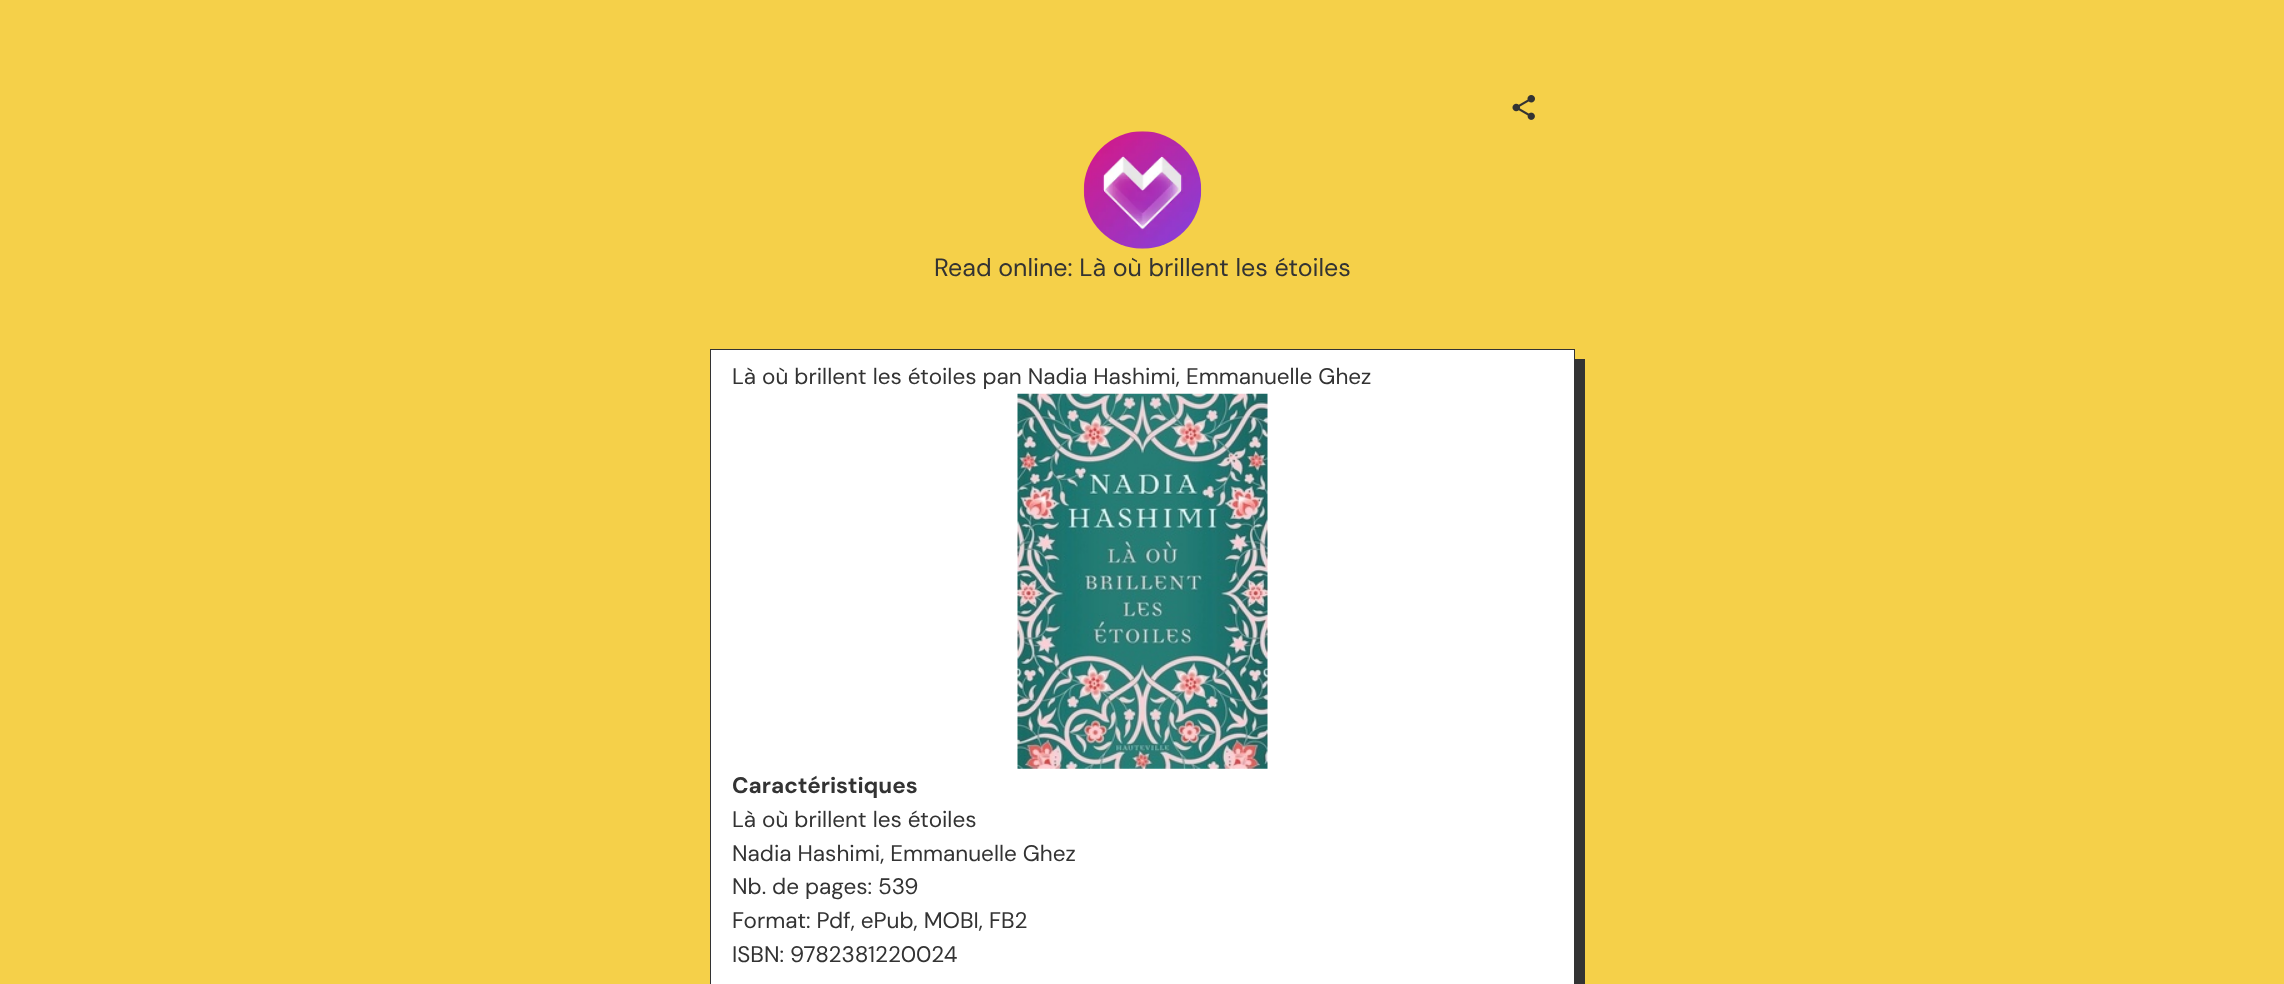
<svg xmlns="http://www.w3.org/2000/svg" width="2284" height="984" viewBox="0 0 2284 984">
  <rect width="100%" height="100%" fill="rgb(245,208,73)"/>
  <image x="1512" y="95" width="23" height="25" href="pic1.png"/>
  <image x="1083" y="131" width="119" height="118" href="pic2.png"/>
  <text x="934" y="276" font-family="DM Sans" font-size="25" fill="rgb(51,51,51)">Read online: Là où brillent les étoiles</text>
  <path d="M720 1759V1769H1585V359H1575V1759Z" fill="rgb(51,51,51)"/>
  <rect x="710.5" y="349.5" width="864" height="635" fill="rgb(255,255,255)" stroke="rgb(51,51,51)"/>
  <text x="732" y="384" font-family="DM Sans" font-size="22.5" fill="rgb(51,51,51)">Là où brillent les étoiles pan Nadia Hashimi, Emmanuelle Ghez</text>
  <image x="1017" y="393" width="251" height="376" href="pic3.png"/>
  <text x="732" y="793" font-family="DM Sans" font-size="22.5" font-weight="bold" fill="rgb(51,51,51)">Caractéristiques</text>
  <g font-family="DM Sans" font-size="22.5" fill="rgb(51,51,51)">
    <text>
      <tspan x="732" y="827">Là où brillent les étoiles</tspan>
      <tspan x="732" y="861">Nadia Hashimi, Emmanuelle Ghez</tspan>
      <tspan x="732" y="894">Nb. de pages: 539</tspan>
      <tspan x="732" y="928">Format: Pdf, ePub, MOBI, FB2</tspan>
      <tspan x="732" y="962">ISBN: 9782381220024</tspan>
    </text>
  </g>
</svg>
